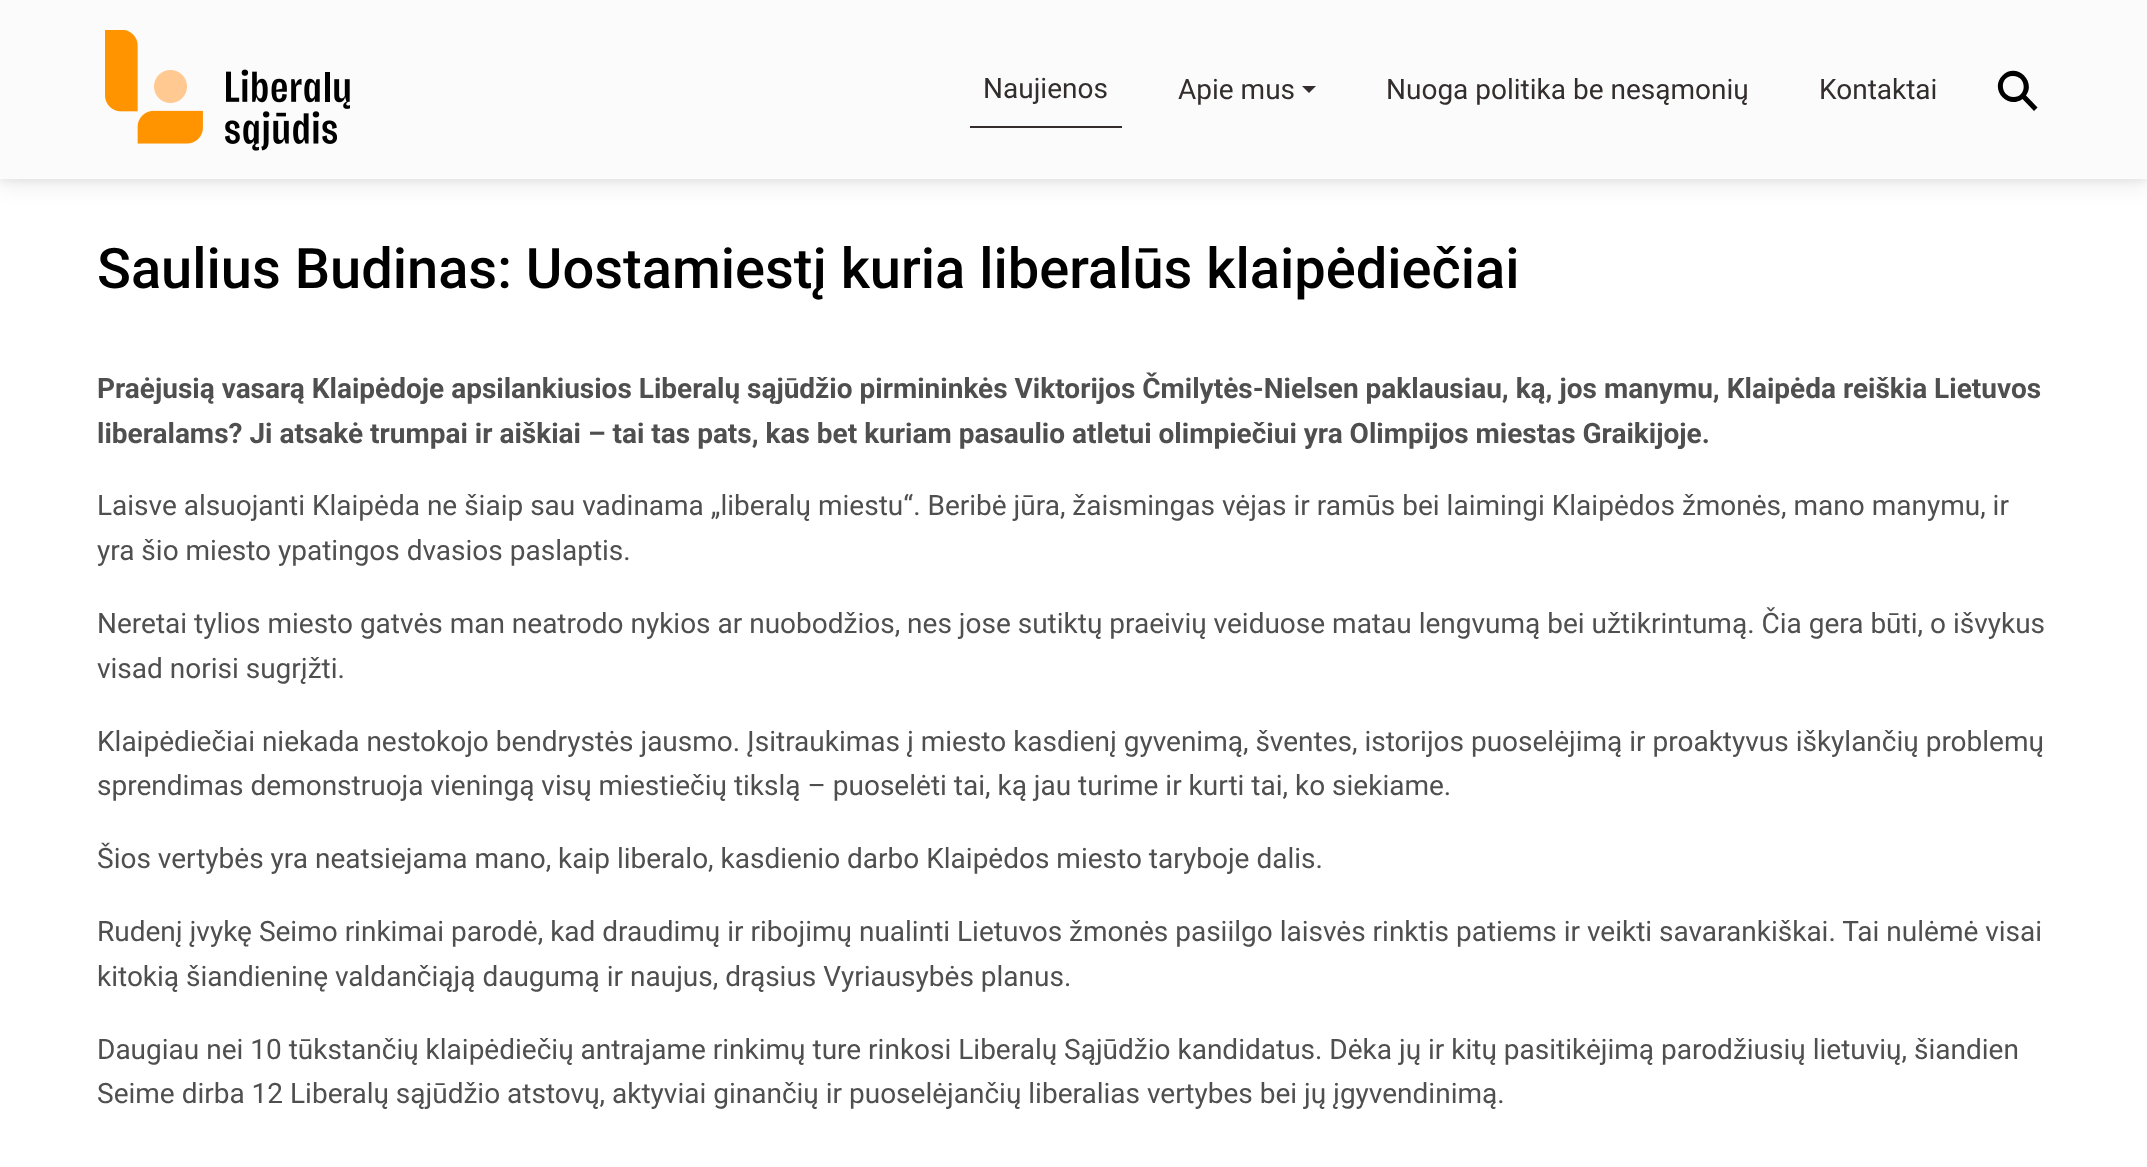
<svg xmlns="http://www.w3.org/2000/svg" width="2147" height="1167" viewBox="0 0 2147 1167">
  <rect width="100%" height="100%" fill="rgb(255,255,255)"/>
  <rect x="0" y="4" width="2147" height="178" fill="rgba(0,0,0,0.05)" filter="blur(3.5px)"/>
  <rect x="0" y="7" width="2147" height="179" fill="rgba(0,0,0,0.07)" filter="blur(10.5px)"/>
  <rect x="0" y="0" width="2147" height="179" fill="rgb(251,251,251)"/>
  <image x="105" y="30" width="245" height="121" href="pic1.png"/>
  <rect x="970" y="126" width="152" height="2" fill="rgb(51,45,45)"/>
  <g font-family="Roboto" font-size="28" fill="rgb(51,45,45)">
    <text x="983" y="98">Naujienos</text>
    <text x="1178" y="99">Apie mus</text>
  </g>
  <path d="M1302 86H1316L1309 93Z" fill="rgb(51,45,45)"/>
  <g font-family="Roboto" font-size="28" fill="rgb(51,45,45)">
    <text x="1386" y="99">Nuoga politika be nesąmonių</text>
    <text x="1819" y="99">Kontaktai</text>
  </g>
  <path d="M2037.5 107.5L2026 95.5C2036.5 80.5 2016 62 2002.5 75.5C1989 89 2007.5 110 2022.5 99L2034 111ZM2013.5 97C2000 97 1999 76.5 2012.5 76C2027 75.5 2027.5 97 2013.5 97Z" fill="rgb(0,0,0)"/>
  <text x="97" y="288" font-family="Roboto" font-size="56" font-weight="500" fill="rgb(0,0,0)">Saulius Budinas: Uostamiestį kuria liberalūs klaipėdiečiai</text>
  <g font-family="Roboto" font-size="28" font-weight="bold" fill="rgb(79,79,79)">
    <text>
      <tspan x="97" y="398">Praėjusią vasarą Klaipėdoje apsilankiusios Liberalų sąjūdžio pirmininkės Viktorijos Čmilytės-Nielsen paklausiau, ką, jos manymu, Klaipėda reiškia Lietuvos</tspan>
      <tspan x="97" y="443">liberalams? Ji atsakė trumpai ir aiškiai – tai tas pats, kas bet kuriam pasaulio atletui olimpiečiui yra Olimpijos miestas Graikijoje.</tspan>
    </text>
  </g>
  <g font-family="Roboto" font-size="28" fill="rgb(79,79,79)">
    <text>
      <tspan x="97" y="515">Laisve alsuojanti Klaipėda ne šiaip sau vadinama „liberalų miestu“. Beribė jūra, žaismingas vėjas ir ramūs bei laimingi Klaipėdos žmonės, mano manymu, ir</tspan>
      <tspan x="97" y="560">yra šio miesto ypatingos dvasios paslaptis.</tspan>
    </text>
    <text>
      <tspan x="97" y="633">Neretai tylios miesto gatvės man neatrodo nykios ar nuobodžios, nes jose sutiktų praeivių veiduose matau lengvumą bei užtikrintumą. Čia gera būti, o išvykus</tspan>
      <tspan x="97" y="678">visad norisi sugrįžti.</tspan>
    </text>
    <text>
      <tspan x="97" y="751">Klaipėdiečiai niekada nestokojo bendrystės jausmo. Įsitraukimas į miesto kasdienį gyvenimą, šventes, istorijos puoselėjimą ir proaktyvus iškylančių problemų</tspan>
      <tspan x="97" y="795">sprendimas demonstruoja vieningą visų miestiečių tikslą – puoselėti tai, ką jau turime ir kurti tai, ko siekiame.</tspan>
    </text>
    <text x="97" y="868">Šios vertybės yra neatsiejama mano, kaip liberalo, kasdienio darbo Klaipėdos miesto taryboje dalis.</text>
    <text>
      <tspan x="97" y="941">Rudenį įvykę Seimo rinkimai parodė, kad draudimų ir ribojimų nualinti Lietuvos žmonės pasiilgo laisvės rinktis patiems ir veikti savarankiškai. Tai nulėmė visai</tspan>
      <tspan x="97" y="986">kitokią šiandieninę valdančiąją daugumą ir naujus, drąsius Vyriausybės planus.</tspan>
    </text>
    <text>
      <tspan x="97" y="1059">Daugiau nei 10 tūkstančių klaipėdiečių antrajame rinkimų ture rinkosi Liberalų Sąjūdžio kandidatus. Dėka jų ir kitų pasitikėjimą parodžiusių lietuvių, šiandien</tspan>
      <tspan x="97" y="1103">Seime dirba 12 Liberalų sąjūdžio atstovų, aktyviai ginančių ir puoselėjančių liberalias vertybes bei jų įgyvendinimą.</tspan>
    </text>
  </g>
</svg>
